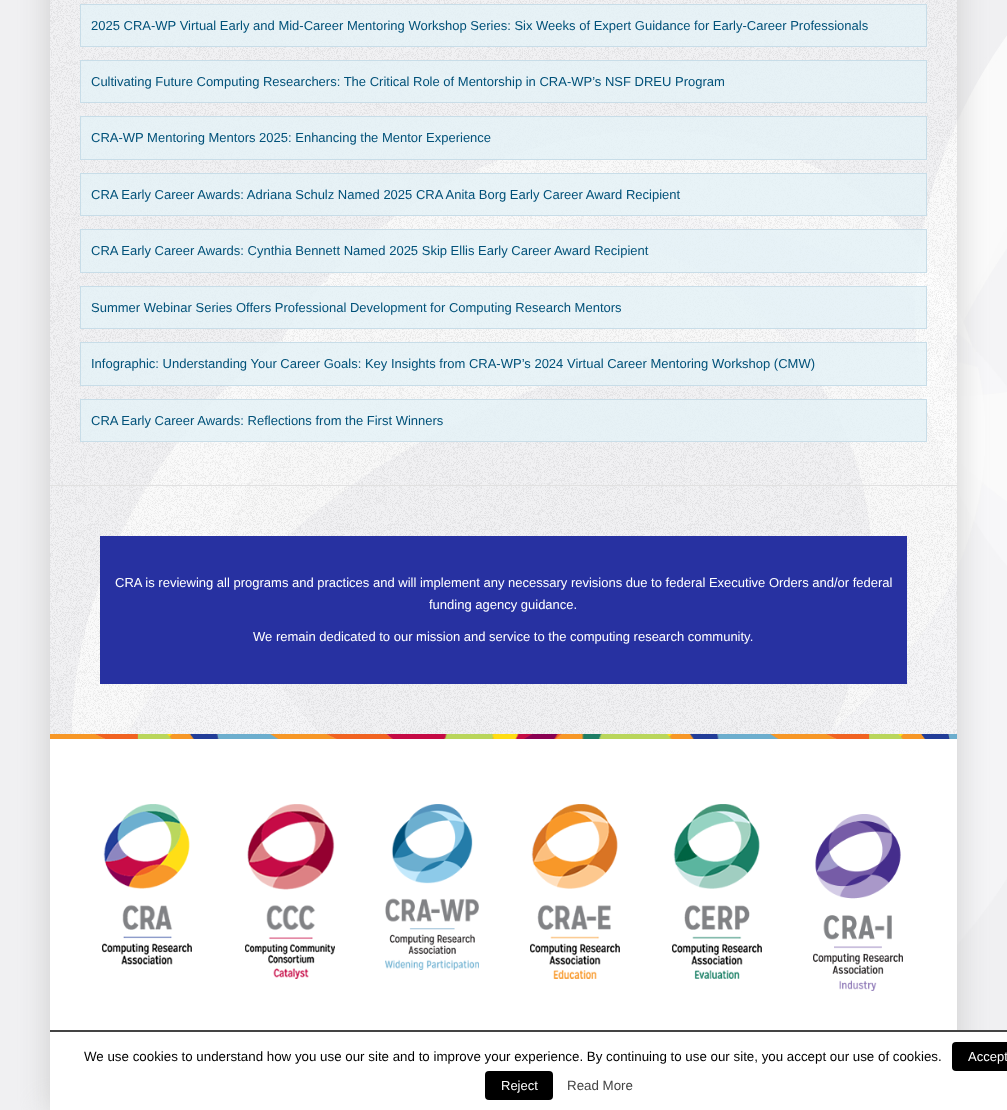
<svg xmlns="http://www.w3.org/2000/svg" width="1007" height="1110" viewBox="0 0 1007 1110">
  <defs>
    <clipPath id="clip1"><path d="M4 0H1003V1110H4ZM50-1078H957V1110H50Z" clip-rule="evenodd"/></clipPath>
  </defs>
  <rect width="100%" height="100%" fill="rgb(255,255,255)"/>
  <image x="0" y="0" width="1007" height="1110" href="pic1.png"/>
  <g clip-path="url(#clip1)">
    <rect x="50" y="-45" width="907" height="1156" fill="rgb(204,204,204)" filter="blur(15px)"/>
  </g>
  <image x="50" y="0" width="907" height="485" href="pic2.png"/>
  <rect x="80.5" y="4.5" width="846" height="42" fill="rgba(228,241,246,0.81)" stroke="rgb(200,221,232)"/>
  <text x="91" y="30" font-family="Liberation Sans" font-size="13" fill="rgb(0,81,121)">2025 CRA-WP Virtual Early and Mid-Career Mentoring Workshop Series: Six Weeks of Expert Guidance for Early-Career Professionals</text>
  <rect x="80.5" y="60.5" width="846" height="42" fill="rgba(228,241,246,0.81)" stroke="rgb(200,221,232)"/>
  <text x="91" y="86" font-family="Liberation Sans" font-size="13" fill="rgb(0,81,121)">Cultivating Future Computing Researchers: The Critical Role of Mentorship in CRA-WP’s NSF DREU Program</text>
  <rect x="80.5" y="116.5" width="846" height="43" fill="rgba(228,241,246,0.81)" stroke="rgb(200,221,232)"/>
  <text x="91" y="142" font-family="Liberation Sans" font-size="13" fill="rgb(0,81,121)">CRA-WP Mentoring Mentors 2025: Enhancing the Mentor Experience</text>
  <rect x="80.5" y="173.5" width="846" height="42" fill="rgba(228,241,246,0.81)" stroke="rgb(200,221,232)"/>
  <text x="91" y="199" font-family="Liberation Sans" font-size="13" fill="rgb(0,81,121)">CRA Early Career Awards: Adriana Schulz Named 2025 CRA Anita Borg Early Career Award Recipient</text>
  <rect x="80.5" y="229.5" width="846" height="43" fill="rgba(228,241,246,0.81)" stroke="rgb(200,221,232)"/>
  <text x="91" y="255" font-family="Liberation Sans" font-size="13" fill="rgb(0,81,121)">CRA Early Career Awards: Cynthia Bennett Named 2025 Skip Ellis Early Career Award Recipient</text>
  <rect x="80.5" y="286.5" width="846" height="42" fill="rgba(228,241,246,0.81)" stroke="rgb(200,221,232)"/>
  <text x="91" y="312" font-family="Liberation Sans" font-size="13" fill="rgb(0,81,121)">Summer Webinar Series Offers Professional Development for Computing Research Mentors</text>
  <rect x="80.5" y="342.5" width="846" height="43" fill="rgba(228,241,246,0.81)" stroke="rgb(200,221,232)"/>
  <text x="91" y="368" font-family="Liberation Sans" font-size="13" fill="rgb(0,81,121)">Infographic: Understanding Your Career Goals: Key Insights from CRA-WP’s 2024 Virtual Career Mentoring Workshop (CMW)</text>
  <rect x="80.5" y="399.5" width="846" height="42" fill="rgba(228,241,246,0.81)" stroke="rgb(200,221,232)"/>
  <text x="91" y="425" font-family="Liberation Sans" font-size="13" fill="rgb(0,81,121)">CRA Early Career Awards: Reflections from the First Winners</text>
  <image x="50" y="486" width="907" height="248" href="pic3.png"/>
  <rect x="50" y="485" width="907" height="1" fill="rgb(225,225,225)"/>
  <rect x="100" y="536" width="807" height="148" fill="rgb(39,49,161)"/>
  <g font-family="Liberation Sans" font-size="13" fill="rgb(255,255,255)">
    <text x="115" y="587">CRA is reviewing all programs and practices and will implement any necessary revisions due to federal Executive Orders and/or federal</text>
    <text x="429" y="609">funding agency guidance.</text>
    <text x="253" y="641">We remain dedicated to our mission and service to the computing research community.</text>
  </g>
  <rect x="50" y="739" width="907" height="291" fill="rgb(255,255,255)"/>
  <image x="50" y="734" width="907" height="5" href="pic4.png"/>
  <image x="102" y="804" width="90" height="161" href="pic5.png"/>
  <image x="245" y="804" width="90" height="175" href="pic6.png"/>
  <image x="385" y="804" width="94" height="166" href="pic7.png"/>
  <image x="530" y="804" width="90" height="175" href="pic8.png"/>
  <image x="672" y="804" width="90" height="175" href="pic9.png"/>
  <image x="813" y="814" width="90" height="177" href="pic10.png"/>
  <rect x="50" y="1032" width="957" height="78" fill="rgb(255,255,255)"/>
  <rect x="50" y="1030" width="957" height="2" fill="rgb(68,68,68)"/>
  <text x="84" y="1061" font-family="Liberation Sans" font-size="13.33" fill="rgb(0,0,0)">We use cookies to understand how you use our site and to improve your experience. By continuing to use our site, you accept our use of cookies.</text>
  <rect x="952" y="1042" width="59" height="29" rx="4" fill="rgb(0,0,0)"/>
  <text x="968" y="1061" font-family="Liberation Sans" font-size="13" fill="rgb(255,255,255)">Accept</text>
  <rect x="485" y="1071" width="68" height="29" rx="4" fill="rgb(0,0,0)"/>
  <text x="501" y="1090" font-family="Liberation Sans" font-size="13" fill="rgb(255,255,255)">Reject</text>
  <text x="567" y="1090" font-family="Liberation Sans" font-size="13.33" fill="rgb(68,68,68)">Read More</text>
</svg>
